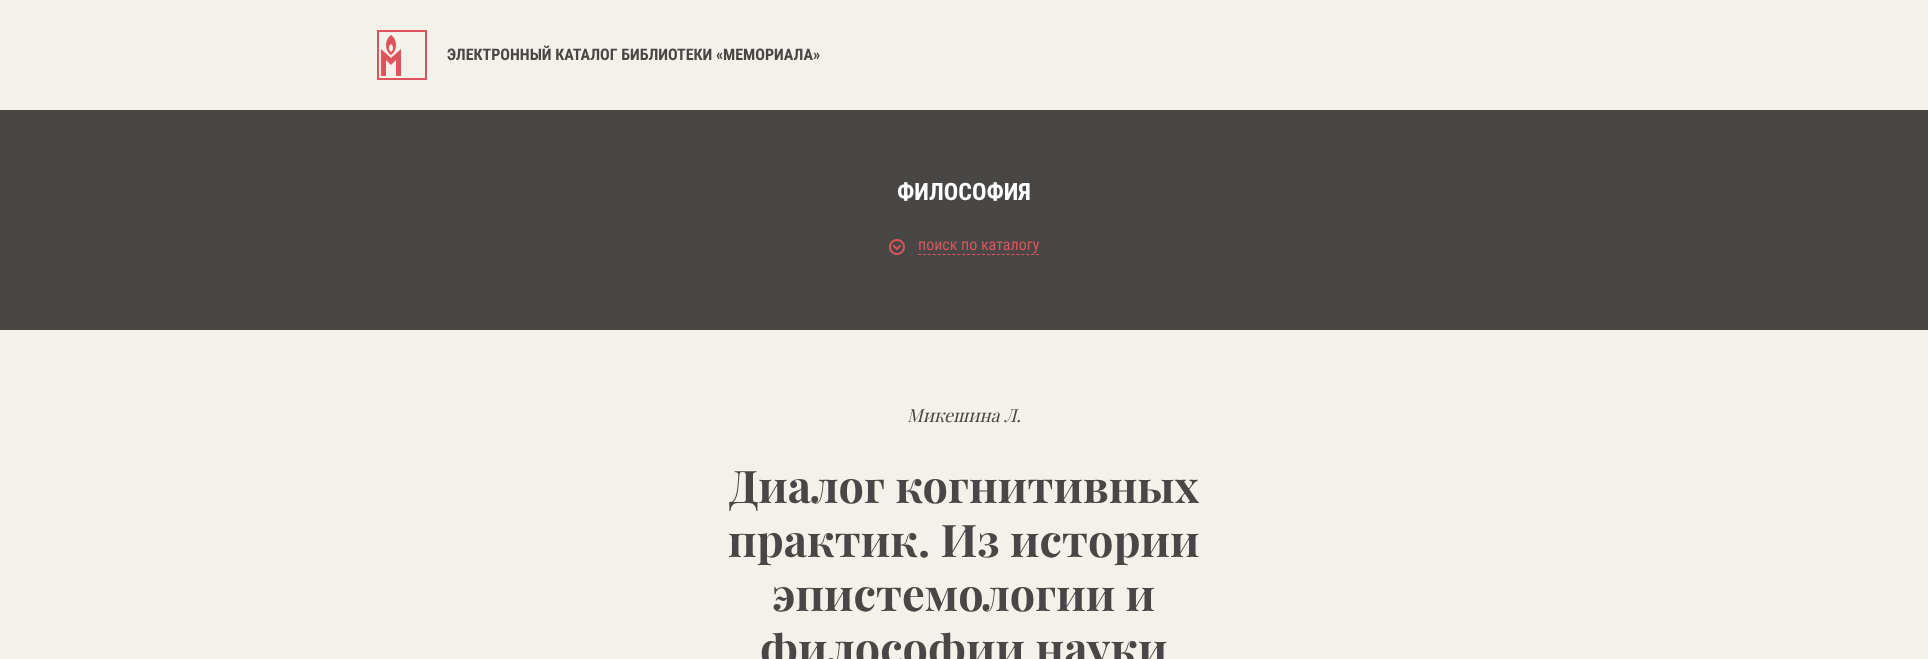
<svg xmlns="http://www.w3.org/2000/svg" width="1928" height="659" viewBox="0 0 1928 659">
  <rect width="100%" height="100%" fill="rgb(244,241,234)"/>
  <image x="377" y="30" width="50" height="50" href="pic1.png"/>
  <text x="447" y="60" font-family="Roboto Condensed" font-size="16" font-weight="bold" fill="rgb(72,71,69)">ЭЛЕКТРОННЫЙ КАТАЛОГ БИБЛИОТЕКИ «МЕМОРИАЛА»</text>
  <rect x="0" y="110" width="1928" height="220" fill="rgb(72,71,69)"/>
  <text x="897" y="200" font-family="Roboto Condensed" font-size="24" font-weight="bold" fill="rgb(255,255,255)">ФИЛОСОФИЯ</text>
  <image x="889" y="239" width="16" height="16" href="pic2.png"/>
  <text x="918" y="250" font-family="Roboto Condensed" font-size="16" fill="rgb(221,84,92)">поиск по каталогу</text>
  <path d="M918 254.5H1039" fill="none" stroke="rgb(221,84,92)" stroke-dasharray="3 1.92"/>
  <text x="907" y="422" font-family="Playfair Display" font-size="18" font-style="italic" fill="rgb(72,71,69)">Микешина Л.</text>
  <g font-family="Playfair Display" font-size="45" font-weight="bold" fill="rgb(72,71,69)">
    <text x="729" y="503">Диалог когнитивных</text>
    <text x="728" y="557">практик. Из истории</text>
    <text x="772" y="611">эпистемологии и</text>
    <text x="760" y="665">философии науки</text>
  </g>
</svg>
